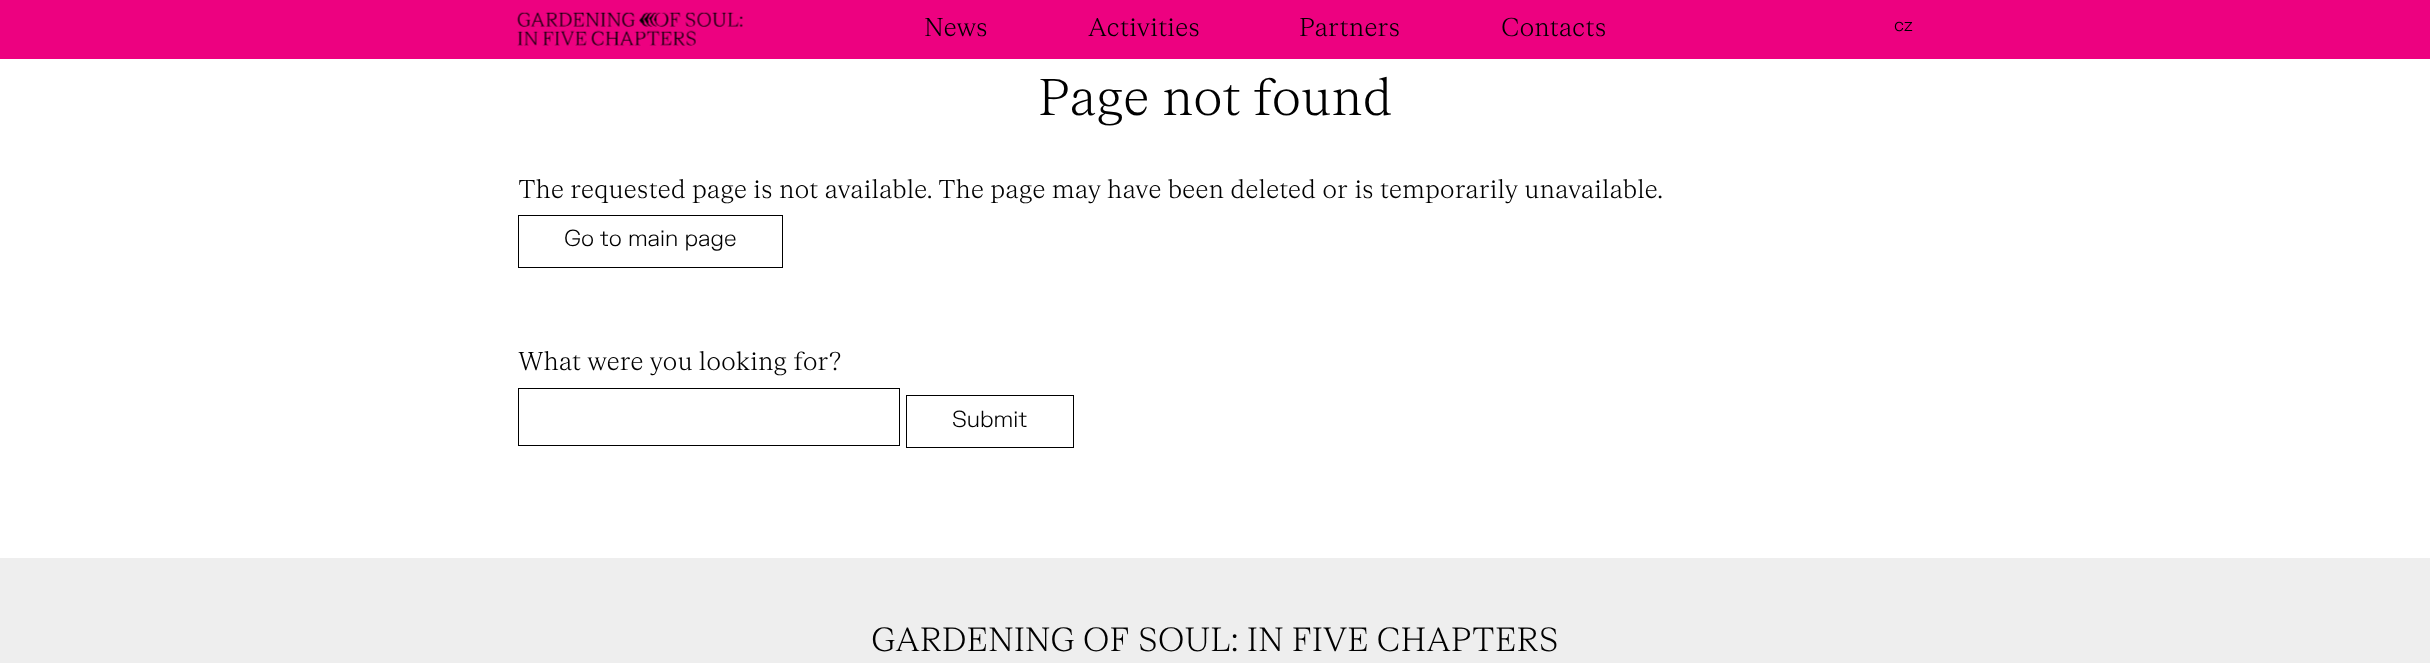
<svg xmlns="http://www.w3.org/2000/svg" width="2430" height="663" viewBox="0 0 2430 663">
  <rect width="100%" height="100%" fill="rgb(255,255,255)"/>
  <rect x="0" y="0" width="2430" height="59" fill="rgb(237,1,128)"/>
  <image x="517" y="12" width="226" height="34" href="pic1.png"/>
  <g font-family="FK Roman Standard" font-size="25" font-weight="300" fill="rgb(0,0,0)">
    <text x="924" y="36">News</text>
    <text x="1088" y="36">Activities</text>
    <text x="1299" y="36">Partners</text>
    <text x="1501" y="36">Contacts</text>
  </g>
  <text x="1894" y="31" font-family="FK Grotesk" font-size="18" font-weight="300" fill="rgb(0,0,0)">cz</text>
  <text x="1038" y="115" font-family="FK Roman Standard" font-size="50" font-weight="300" fill="rgb(0,0,0)">Page not found</text>
  <text x="518" y="198" font-family="FK Roman Standard" font-size="25" font-weight="300" fill="rgb(0,0,0)">The requested page is not available. The page may have been deleted or is temporarily unavailable.</text>
  <rect x="518.5" y="215.5" width="264" height="52" fill="none" stroke="rgb(0,0,0)"/>
  <text x="564" y="246" font-family="FK Grotesk" font-size="22.5" font-weight="300" fill="rgb(0,0,0)">Go to main page</text>
  <text x="518" y="370" font-family="FK Roman Standard" font-size="25" font-weight="300" fill="rgb(0,0,0)">What were you looking for?</text>
  <rect x="518.5" y="388.5" width="381" height="57" fill="none" stroke="rgb(0,0,0)"/>
  <rect x="906.5" y="395.5" width="167" height="52" fill="none" stroke="rgb(0,0,0)"/>
  <text x="952" y="427" font-family="FK Grotesk" font-size="22.5" font-weight="300" fill="rgb(0,0,0)">Submit</text>
  <rect x="0" y="558" width="2430" height="105" fill="rgb(238,238,238)"/>
  <text x="871" y="651" font-family="FK Roman Standard" font-size="32.5" font-weight="300" fill="rgb(0,0,0)">GARDENING OF SOUL: IN FIVE CHAPTERS</text>
</svg>
